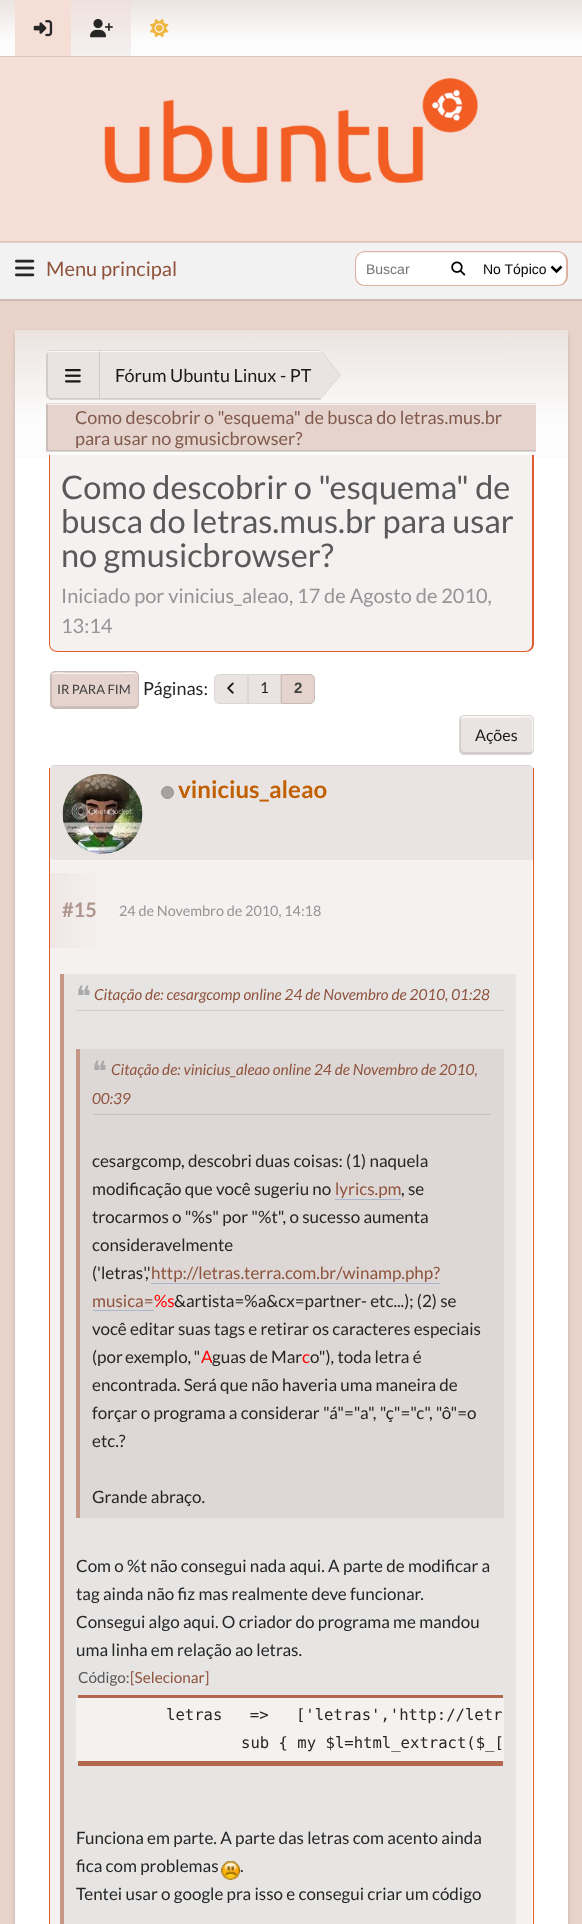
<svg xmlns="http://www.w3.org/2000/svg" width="582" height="1924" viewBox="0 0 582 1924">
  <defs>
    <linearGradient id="g1" gradientUnits="userSpaceOnUse" x1="291" y1="0" x2="291" y2="56"><stop offset="0" stop-color="rgb(235,227,224)"/><stop offset="0.7" stop-color="rgb(252,252,252)"/></linearGradient>
    <linearGradient id="g2" gradientUnits="userSpaceOnUse" x1="291" y1="56" x2="291" y2="113"><stop offset="0" stop-color="rgb(235,227,224)"/><stop offset="0.7" stop-color="rgb(252,252,252)"/></linearGradient>
    <linearGradient id="g3" gradientUnits="userSpaceOnUse" x1="101" y1="0" x2="101" y2="56"><stop offset="0" stop-color="rgb(238,225,221)"/><stop offset="1" stop-color="rgb(244,241,240)"/></linearGradient>
    <linearGradient id="g4" gradientUnits="userSpaceOnUse" x1="291" y1="330" x2="291" y2="458"><stop offset="0" stop-color="rgb(235,227,224)"/><stop offset="0.7" stop-color="rgb(252,252,252)"/></linearGradient>
    <clipPath id="clip1"><rect x="99" y="351" width="222" height="48"/></clipPath>
    <clipPath id="clip2"><rect x="46" y="404" width="490" height="47"/></clipPath>
    <linearGradient id="g5" gradientUnits="userSpaceOnUse" x1="50" y1="910" x2="110" y2="910"><stop offset="0" stop-color="rgb(240,231,229)"/><stop offset="1" stop-color="rgb(244,241,240)"/></linearGradient>
  </defs>
  <rect width="100%" height="100%" fill="rgb(232,210,201)"/>
  <rect x="0" y="0" width="582" height="56" fill="url(#g1)"/>
  <rect x="0" y="57" width="582" height="1" fill="url(#g2)"/>
  <rect x="0" y="56" width="582" height="1" fill="rgb(227,193,181)"/>
  <rect x="15" y="0" width="56" height="56" fill="rgb(245,222,214)"/>
  <image x="33" y="20" width="20" height="17" href="pic1.png"/>
  <rect x="71" y="0" width="60" height="56" fill="url(#g3)"/>
  <image x="90" y="19" width="23" height="19" href="pic2.png"/>
  <image x="150" y="19" width="19" height="19" href="pic3.png"/>
  <rect x="0" y="245" width="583" height="56" fill="rgba(0,0,0,0.1)" filter="blur(0.5px)"/>
  <rect x="0" y="243" width="582" height="56" fill="rgb(242,242,242)"/>
  <image x="15" y="259" width="20" height="18" href="pic4.png"/>
  <text x="46" y="276" font-family="Lato" font-size="20" fill="rgb(143,83,61)">Menu principal</text>
  <rect x="0" y="58" width="582" height="183" fill="rgb(245,222,214)"/>
  <rect x="0" y="241" width="582" height="1" fill="rgb(227,193,181)"/>
  <image x="104" y="77" width="374" height="107" href="pic5.png"/>
  <path d="M365 253H439V285H365C360 285 356 281 356 276V262C356 257 360 253 365 253Z" fill="rgb(255,255,255)"/>
  <path d="M365 251H439V286H365C359 286 355 282 355 276V261C355 256 359 251 365 251ZM365 252H439V285H365C360 285 356 281 356 276V261C356 256 360 252 365 252Z" fill="rgb(223,176,159)" fill-rule="evenodd"/>
  <text x="366" y="274" font-family="Liberation Sans" font-size="14" fill="rgb(117,117,117)">Buscar</text>
  <rect x="439" y="253" width="39" height="32" fill="rgb(255,255,255)"/>
  <rect x="439" y="251" width="39" height="1" fill="rgb(223,176,159)"/>
  <rect x="439" y="285" width="39" height="1" fill="rgb(223,176,159)"/>
  <image x="451" y="261" width="15" height="15" href="pic6.png"/>
  <path d="M478 253H557C562 253 566 257 566 262V276C566 281 562 285 557 285H478Z" fill="rgb(255,255,255)"/>
  <path d="M478 251H558C563 251 568 256 568 261V276C568 282 563 286 558 286H478ZM478 252H558C562 252 566 256 566 261V276C566 281 562 285 558 285H478Z" fill="rgb(223,176,159)" fill-rule="evenodd"/>
  <path d="M551.5 266.5L556.5 271.5L561.5 266.5" fill="none" stroke="rgb(0,0,0)" stroke-width="2.5"/>
  <text x="483" y="274" font-family="Liberation Sans" font-size="14" fill="rgb(0,0,0)">No Tópico</text>
  <rect x="15" y="333" width="553" height="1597" fill="rgba(0,0,0,0.14)" filter="blur(2px)"/>
  <rect x="15" y="330" width="553" height="128" fill="url(#g4)"/>
  <path d="M51 351H99V399H51C48 399 46 397 46 395V355C46 353 48 351 51 351Z" fill="rgb(233,228,226)"/>
  <path d="M51 352H99V351H51C49 351 46 353 46 355C47 353 49 352 51 352Z" fill="rgb(248,247,246)"/>
  <path d="M49 352L48 354V394C48 396 50 398 52 398H99V399H51C48 399 46 397 46 395V355C46 354 47 352 49 352Z" fill="rgba(0,0,0,0.1)"/>
  <rect x="49" y="350" width="272" height="1" fill="rgb(222,214,211)"/>
  <rect x="49" y="399" width="272" height="1" fill="rgb(222,214,211)"/>
  <image x="65" y="369" width="16" height="14" href="pic7.png"/>
  <rect x="99" y="352" width="222" height="47" fill="rgb(233,228,226)"/>
  <rect x="99" y="351" width="222" height="1" fill="rgb(248,247,246)"/>
  <g clip-path="url(#clip1)">
    <path d="M48 349H445V454H48C47 454 46 453 46 452V352C46 350 47 349 48 349ZM100 350V398H322V350Z" fill="rgba(0,0,0,0.1)" fill-rule="evenodd"/>
  </g>
  <path d="M322 398V352L341 375Z" fill="rgba(0,0,0,0.1)"/>
  <path d="M321 398V352L340 375Z" fill="rgb(233,228,226)"/>
  <text x="115" y="382" font-family="Lato" font-size="18" fill="rgb(26,26,26)">Fórum Ubuntu Linux - PT</text>
  <rect x="46" y="405" width="490" height="46" fill="rgb(229,211,205)"/>
  <rect x="46" y="404" width="490" height="1" fill="rgb(247,242,240)"/>
  <g clip-path="url(#clip2)">
    <path d="M48 402H536V352C536 350 535 349 534 349H48C47 349 46 350 46 352V452C46 453 47 454 48 454H534C535 454 536 453 536 452V450H48Z" fill="rgba(0,0,0,0.1)"/>
  </g>
  <rect x="46" y="403" width="490" height="1" fill="rgb(222,214,211)"/>
  <rect x="46" y="451" width="490" height="1" fill="rgb(222,214,211)"/>
  <g font-family="Lato" font-size="18" fill="rgb(128,90,77)">
    <text>
      <tspan x="75" y="424">Como descobrir o "esquema" de busca do letras.mus.br</tspan>
      <tspan x="75" y="445">para usar no gmusicbrowser?</tspan>
    </text>
  </g>
  <rect x="15" y="458" width="553" height="1466" fill="rgb(255,255,255)"/>
  <path d="M50 455H533V643C533 647.5 529.5 651 525 651H58C53.5 651 50 647.5 50 643Z" fill="rgb(244,241,240)"/>
  <path d="M49 455H534V644C534 649 530 652 525 652H58C53 652 49 649 49 644ZM50 455H532V644C532 648 529 651 525 651H58C53 651 50 648 50 644Z" fill="rgb(224,94,46)" fill-rule="evenodd"/>
  <g font-family="Lato" font-size="32.5" fill="rgb(89,89,89)">
    <text>
      <tspan x="61" y="499">Como descobrir o "esquema" de</tspan>
      <tspan x="61" y="533">busca do letras.mus.br para usar</tspan>
      <tspan x="61" y="567">no gmusicbrowser?</tspan>
    </text>
  </g>
  <g font-family="Lato" font-size="20" fill="rgb(149,149,149)">
    <text>
      <tspan x="61" y="603">Iniciado por vinicius_aleao, 17 de Agosto de 2010,</tspan>
      <tspan x="61" y="633">13:14</tspan>
    </text>
  </g>
  <rect x="50" y="671" width="89" height="38" rx="5" fill="rgb(229,211,205)"/>
  <path d="M55 674H134C136 674 138 675 138 678C138 670 126 673 121 673H68C63 673 51 670 51 678C51 675 53 674 55 674Z" fill="rgb(247,242,240)"/>
  <path d="M52 674C51 675 51 676 51 677V704C51 706 53 708 55 708H134C136 708 137 707 138 705L135 706H69C51 706 52 709 52 693Z" fill="rgba(0,0,0,0.1)"/>
  <rect x="50.5" y="671.5" width="88" height="37" rx="4.5" fill="none" stroke="rgb(201,187,182)"/>
  <text x="57" y="694" font-family="Lato" font-size="13" fill="rgb(64,64,64)">IR PARA FIM</text>
  <text x="143" y="695" font-family="Lato" font-size="18" fill="rgb(38,38,38)">Páginas:</text>
  <path d="M219 674.5H247.5V703.5H219C216.5 703.5 214.5 701.5 214.5 699V679C214.5 676.5 216.5 674.5 219 674.5Z" fill="rgb(233,228,226)" stroke="rgb(222,214,211)"/>
  <image x="227" y="682" width="7" height="12" href="pic8.png"/>
  <rect x="248.5" y="674.5" width="32" height="29" fill="rgb(233,228,226)" stroke="rgb(222,214,211)"/>
  <text x="260" y="693" font-family="Lato" font-size="15" fill="rgb(26,26,26)">1</text>
  <path d="M281.5 674.5H310C312.5 674.5 314.5 676.5 314.5 679V699C314.5 701.5 312.5 703.5 310 703.5H281.5Z" fill="rgb(229,211,205)" stroke="rgb(201,187,182)"/>
  <text x="294" y="693" font-family="Liberation Sans" font-size="15" font-weight="bold" fill="rgb(64,64,64)">2</text>
  <rect x="459" y="715" width="75" height="40" rx="5" fill="rgb(233,228,226)"/>
  <path d="M464 718H518C519 718 532 715 532 721V753C534 751 533 747 533 745V735C533 710 536 716 507 716H464C461 716 460 718 460 721C460 719 462 718 464 718Z" fill="rgb(248,247,246)"/>
  <path d="M462 717C461 717 460 719 460 720V750C460 752 462 754 464 754H529C531 754 532 753 533 751L530 752H465C463 752 461 751 461 749V719Z" fill="rgba(0,0,0,0.1)"/>
  <rect x="459.5" y="715.5" width="74" height="39" rx="4.5" fill="none" stroke="rgb(222,214,211)"/>
  <text x="475" y="741" font-family="Lato" font-size="16" fill="rgb(26,26,26)">Ações</text>
  <path d="M54 765H529C531 765 532 767 532 770V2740C532 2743 531 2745 529 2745H54C52 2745 50 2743 50 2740V770C50 767 52 765 54 765Z" fill="rgb(244,241,240)"/>
  <path d="M54 766H529C531 766 532 768 532 771V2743V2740V770C532 767 531 765 529 765H54C52 765 50 767 50 770V771C50 768 52 766 54 766Z" fill="rgba(0,0,0,0.1)"/>
  <rect x="533" y="768" width="1" height="1156" fill="rgb(224,94,46)"/>
  <rect x="49" y="768" width="1" height="1156" fill="rgb(224,94,46)"/>
  <path d="M55 766H533V860H55C52 860 50 858 50 855V771C50 768 52 766 55 766Z" fill="rgb(233,228,226)"/>
  <image x="62" y="773" width="81" height="81" href="pic9.png"/>
  <circle cx="167.5" cy="792.5" r="6" fill="rgb(167,162,162)" stroke="rgb(150,146,146)"/>
  <text x="178" y="798" font-family="Lato" font-size="24" font-weight="bold" fill="rgb(192,96,2)">vinicius_aleao</text>
  <rect x="50" y="873" width="46" height="75" fill="url(#g5)"/>
  <text x="62" y="917" font-family="Lato" font-size="20" font-weight="bold" fill="rgb(174,150,142)">#15</text>
  <text x="119" y="916" font-family="Lato" font-size="14.4" fill="rgb(149,149,149)">24 de Novembro de 2010, 14:18</text>
  <rect x="64" y="974" width="452" height="950" fill="rgb(231,229,228)"/>
  <rect x="60" y="974" width="4" height="950" fill="rgb(197,151,135)"/>
  <rect x="76" y="1010" width="428" height="1" fill="rgb(208,206,205)"/>
  <text x="76" y="1006" font-family="DejaVu Sans" font-size="28" fill="rgb(170,170,170)">❝</text>
  <text x="94" y="1000" font-family="Lato" font-size="15.3" font-style="italic" fill="rgb(143,83,61)">Citação de: cesargcomp online 24 de Novembro de 2010, 01:28</text>
  <rect x="80" y="1049" width="424" height="469" fill="rgb(221,215,213)"/>
  <rect x="76" y="1049" width="4" height="469" fill="rgb(197,151,135)"/>
  <rect x="93" y="1114" width="398" height="1" fill="rgb(199,194,192)"/>
  <text x="92" y="1081" font-family="DejaVu Sans" font-size="28" fill="rgb(170,170,170)">❝</text>
  <g font-family="Lato" font-size="15.3" font-style="italic" fill="rgb(143,83,61)">
    <text x="111" y="1075">Citação de: vinicius_aleao online 24 de Novembro de 2010,</text>
    <text x="92" y="1104">00:39</text>
  </g>
  <g font-family="Lato" font-size="17" fill="rgb(38,38,38)">
    <text>
      <tspan x="92" y="1167">cesargcomp, descobri duas coisas: (1) naquela</tspan>
      <tspan x="92" y="1195">modificação que você sugeriu no</tspan>
    </text>
  </g>
  <text x="335" y="1195" font-family="Lato" font-size="17" fill="rgb(143,83,61)">lyrics.pm</text>
  <rect x="335" y="1199" width="66" height="1" fill="rgb(168,182,207)"/>
  <g font-family="Lato" font-size="17" fill="rgb(38,38,38)">
    <text x="401" y="1195">, se</text>
    <text>
      <tspan x="92" y="1223">trocarmos o "%s" por "%t", o sucesso aumenta</tspan>
      <tspan x="92" y="1251">consideravelmente</tspan>
      <tspan x="92" y="1279">('letras','</tspan>
    </text>
  </g>
  <text x="151" y="1279" font-family="Lato" font-size="17" fill="rgb(143,83,61)">http://letras.terra.com.br/winamp.php?</text>
  <rect x="151" y="1283" width="289" height="1" fill="rgb(168,182,207)"/>
  <text x="92" y="1307" font-family="Lato" font-size="17" fill="rgb(143,83,61)">musica=</text>
  <rect x="93" y="1310" width="61" height="1" fill="rgb(168,182,207)"/>
  <text x="154" y="1307" font-family="Lato" font-size="17" fill="rgb(255,0,0)">%s</text>
  <g font-family="Lato" font-size="17" fill="rgb(38,38,38)">
    <text x="174" y="1307">&amp;artista=%a&amp;cx=partner- etc...); (2) se</text>
    <text>
      <tspan x="92" y="1335">você editar suas tags e retirar os caracteres especiais</tspan>
      <tspan x="92" y="1363" word-spacing="-1">(por exemplo, "</tspan>
    </text>
  </g>
  <text x="201" y="1363" font-family="Lato" font-size="17" fill="rgb(255,0,0)">A</text>
  <text x="212" y="1363" font-family="Lato" font-size="17" fill="rgb(38,38,38)">guas de Mar</text>
  <text x="302" y="1363" font-family="Lato" font-size="17" fill="rgb(255,0,0)">c</text>
  <g font-family="Lato" font-size="17" fill="rgb(38,38,38)">
    <text x="310" y="1363">o"), toda letra é</text>
    <text>
      <tspan x="92" y="1391">encontrada. Será que não haveria uma maneira de</tspan>
      <tspan x="92" y="1419">forçar o programa a considerar "á"="a", "ç"="c", "ô"=o</tspan>
      <tspan x="92" y="1447">etc.?</tspan>
    </text>
    <text x="92" y="1503">Grande abraço.</text>
    <text>
      <tspan x="76" y="1572">Com o %t não consegui nada aqui. A parte de modificar a</tspan>
      <tspan x="76" y="1600">tag ainda não fiz mas realmente deve funcionar.</tspan>
      <tspan x="76" y="1628">Consegui algo aqui. O criador do programa me mandou</tspan>
      <tspan x="76" y="1656">uma linha em relação ao letras.</tspan>
    </text>
  </g>
  <text x="78" y="1683" font-family="Lato" font-size="15.3" fill="rgb(89,89,89)">Código:</text>
  <text x="130" y="1683" font-family="Lato" font-size="15.3" fill="rgb(143,83,61)">[Selecionar]</text>
  <path d="M79 1698H504V1761H76V1698Z" fill="rgb(245,241,239)"/>
  <rect x="78" y="1695" width="425" height="3" fill="rgb(179,104,77)"/>
  <rect x="78" y="1761" width="425" height="5" fill="rgb(179,104,77)"/>
  <g font-family="DejaVu Sans Mono" font-size="15.6" fill="rgb(38,38,38)">
    <text x="166" y="1720" word-spacing="-0.25" xml:space="preserve">letras   =&gt;   ['letras','http://letr</text>
    <text x="241" y="1748">sub { my $l=html_extract($_[</text>
  </g>
  <g font-family="Lato" font-size="17" fill="rgb(38,38,38)">
    <text>
      <tspan x="76" y="1844">Funciona em parte. A parte das letras com acento ainda</tspan>
      <tspan x="76" y="1872">fica com problemas</tspan>
    </text>
  </g>
  <image x="221" y="1861" width="19" height="19" href="pic10.png"/>
  <g font-family="Lato" font-size="17" fill="rgb(38,38,38)">
    <text x="240" y="1872">.</text>
    <text x="76" y="1900">Tentei usar o google pra isso e consegui criar um código</text>
  </g>
</svg>
